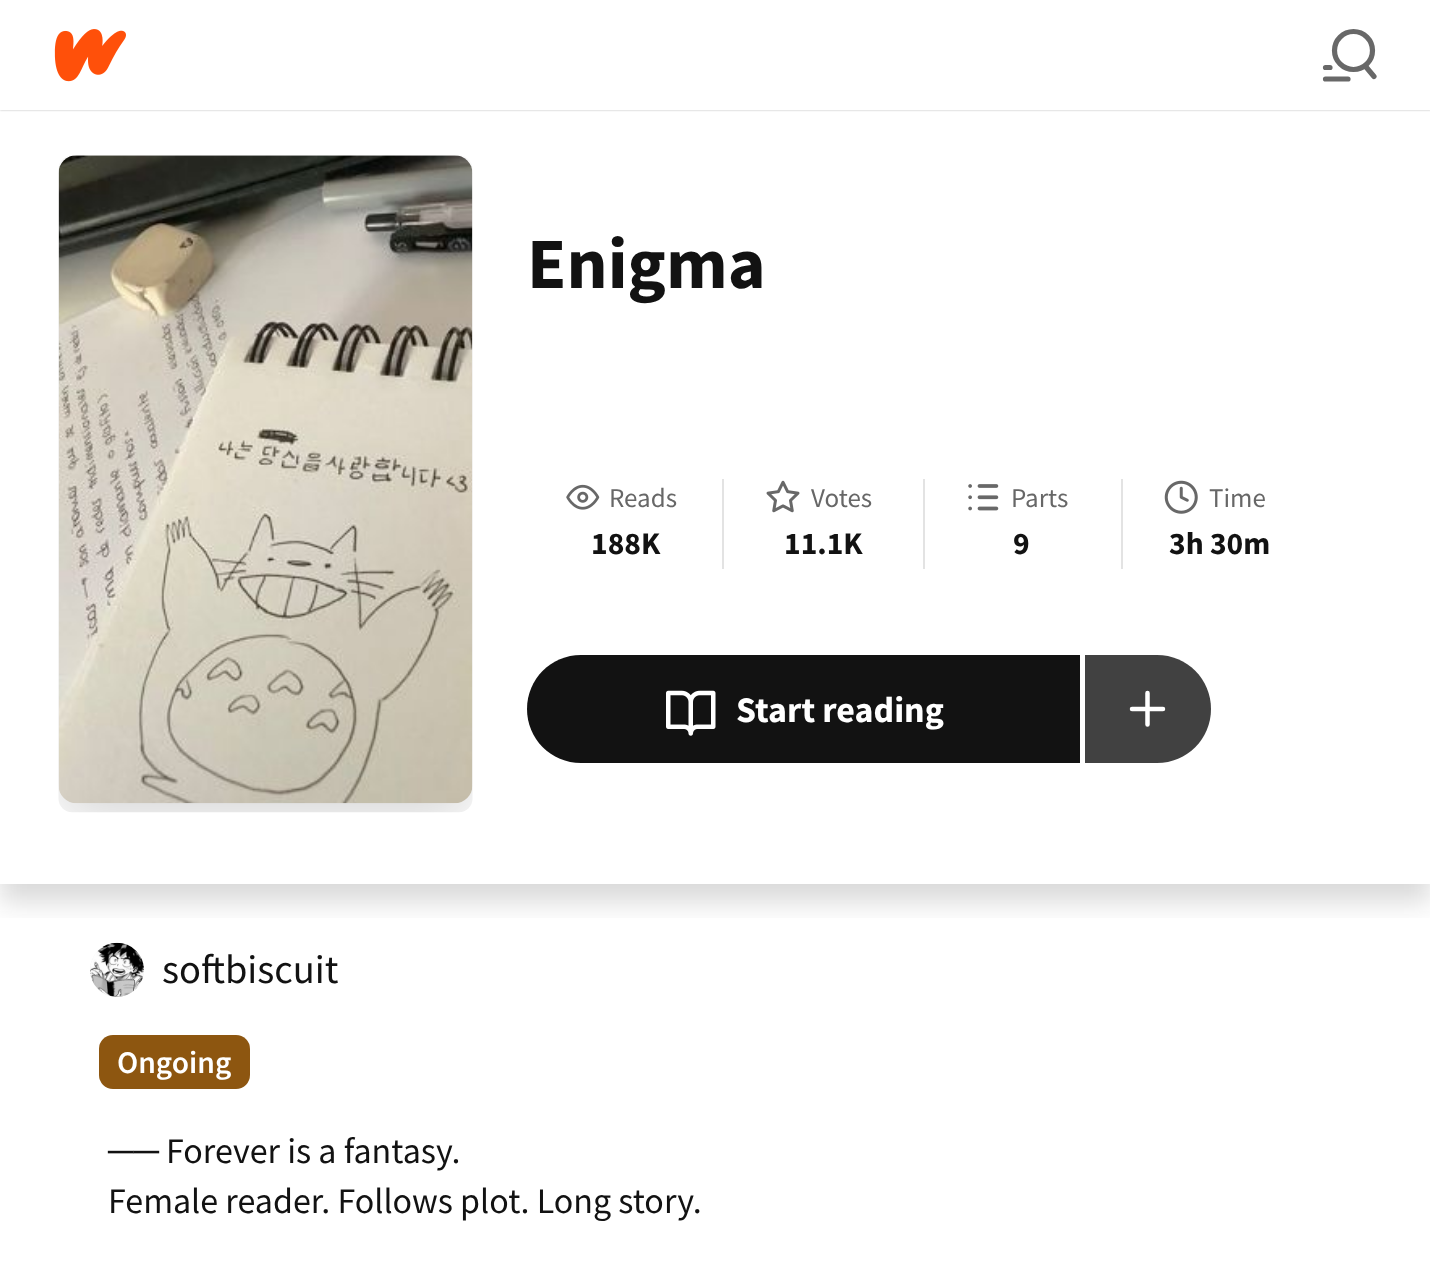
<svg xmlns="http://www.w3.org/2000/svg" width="1430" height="1264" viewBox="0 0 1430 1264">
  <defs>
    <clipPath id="clip1"><rect x="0" y="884" width="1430" height="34"/></clipPath>
    <clipPath id="clip2"><rect x="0" y="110" width="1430" height="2"/></clipPath>
  </defs>
  <rect width="100%" height="100%" fill="rgb(255,255,255)"/>
  <g clip-path="url(#clip1)">
    <rect x="0" y="128" width="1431" height="774" fill="rgba(18,18,18,0.16)" filter="blur(13.5px)"/>
  </g>
  <rect x="12" y="108" width="1407" height="2" fill="rgb(255,255,255)"/>
  <g clip-path="url(#clip2)">
    <rect x="0" y="0" width="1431" height="110" fill="rgba(111,111,111,0.5)" filter="blur(1px)"/>
  </g>
  <image x="54" y="29" width="72" height="53" href="pic1.png"/>
  <circle cx="1353.5" cy="50.5" r="19" fill="none" stroke="rgb(104,104,104)" stroke-width="5.2"/>
  <path d="M1366.5 67.5L1374 76.5M1325.5 67.5H1330M1325.5 79H1348" fill="none" stroke="rgb(104,104,104)" stroke-width="5.2" stroke-linecap="round"/>
  <image x="58" y="155" width="415" height="658" href="pic2.png"/>
  <text x="527" y="288" font-family="Source Sans Pro" font-size="72" font-weight="bold" fill="rgb(18,18,18)">Enigma</text>
  <image x="566" y="484" width="34" height="26" href="pic3.png"/>
  <text x="609" y="507" font-family="Source Sans Pro" font-size="27" fill="rgb(103,103,103)">Reads</text>
  <text x="591" y="554" font-family="Source Sans Pro" font-size="31.5" font-weight="bold" fill="rgb(18,18,18)">188K</text>
  <rect x="722" y="479" width="2" height="90" fill="rgb(227,227,227)"/>
  <image x="766" y="480" width="34" height="33" href="pic4.png"/>
  <text x="811" y="507" font-family="Source Sans Pro" font-size="27" fill="rgb(103,103,103)">Votes</text>
  <text x="784" y="554" font-family="Source Sans Pro" font-size="31.5" font-weight="bold" fill="rgb(18,18,18)">11.1K</text>
  <rect x="923" y="479" width="2" height="90" fill="rgb(227,227,227)"/>
  <image x="968" y="484" width="31" height="27" href="pic5.png"/>
  <text x="1011" y="507" font-family="Source Sans Pro" font-size="27" fill="rgb(103,103,103)">Parts</text>
  <text x="1013" y="554" font-family="Source Sans Pro" font-size="31.5" font-weight="bold" fill="rgb(18,18,18)">9</text>
  <rect x="1121" y="479" width="2" height="90" fill="rgb(227,227,227)"/>
  <image x="1164" y="480" width="34" height="34" href="pic6.png"/>
  <text x="1209" y="507" font-family="Source Sans Pro" font-size="27" fill="rgb(103,103,103)">Time</text>
  <text x="1169" y="554" font-family="Source Sans Pro" font-size="31.5" font-weight="bold" fill="rgb(18,18,18)">3h 30m</text>
  <path d="M581 655H1080V763H581C551 763 527 739 527 709C527 679 551 655 581 655Z" fill="rgb(18,18,18)"/>
  <image x="666" y="690" width="50" height="46" href="pic7.png"/>
  <text x="736" y="722" font-family="Source Sans Pro" font-size="36" font-weight="bold" fill="rgb(255,255,255)">Start reading</text>
  <path d="M1085 655H1157C1187 655 1211 679 1211 709C1211 739 1187 763 1157 763H1085Z" fill="rgb(65,65,65)"/>
  <path d="M1147.5 693V724.5M1132 709H1163" fill="none" stroke="rgb(255,255,255)" stroke-width="4.5" stroke-linecap="round" stroke-linejoin="round"/>
  <circle cx="117" cy="970" r="27" fill="rgb(238,238,238)"/>
  <image x="90" y="942" width="54" height="55" href="pic8.png"/>
  <text x="162" y="983" font-family="Source Sans Pro" font-size="40.5" fill="rgb(18,18,18)">softbiscuit</text>
  <rect x="99" y="1035" width="151" height="54" rx="14" fill="rgb(141,86,16)"/>
  <text x="117" y="1073" font-family="Source Sans Pro" font-size="31.5" font-weight="600" fill="rgb(255,255,255)">Ongoing</text>
  <text x="108" y="1163" font-family="Liberation Sans" font-size="36" fill="rgb(18,18,18)">──</text>
  <g font-family="Source Sans Pro" font-size="36" fill="rgb(18,18,18)">
    <text x="166" y="1163">Forever is a fantasy.</text>
    <text x="108" y="1213">Female reader. Follows plot. Long story.</text>
  </g>
</svg>
